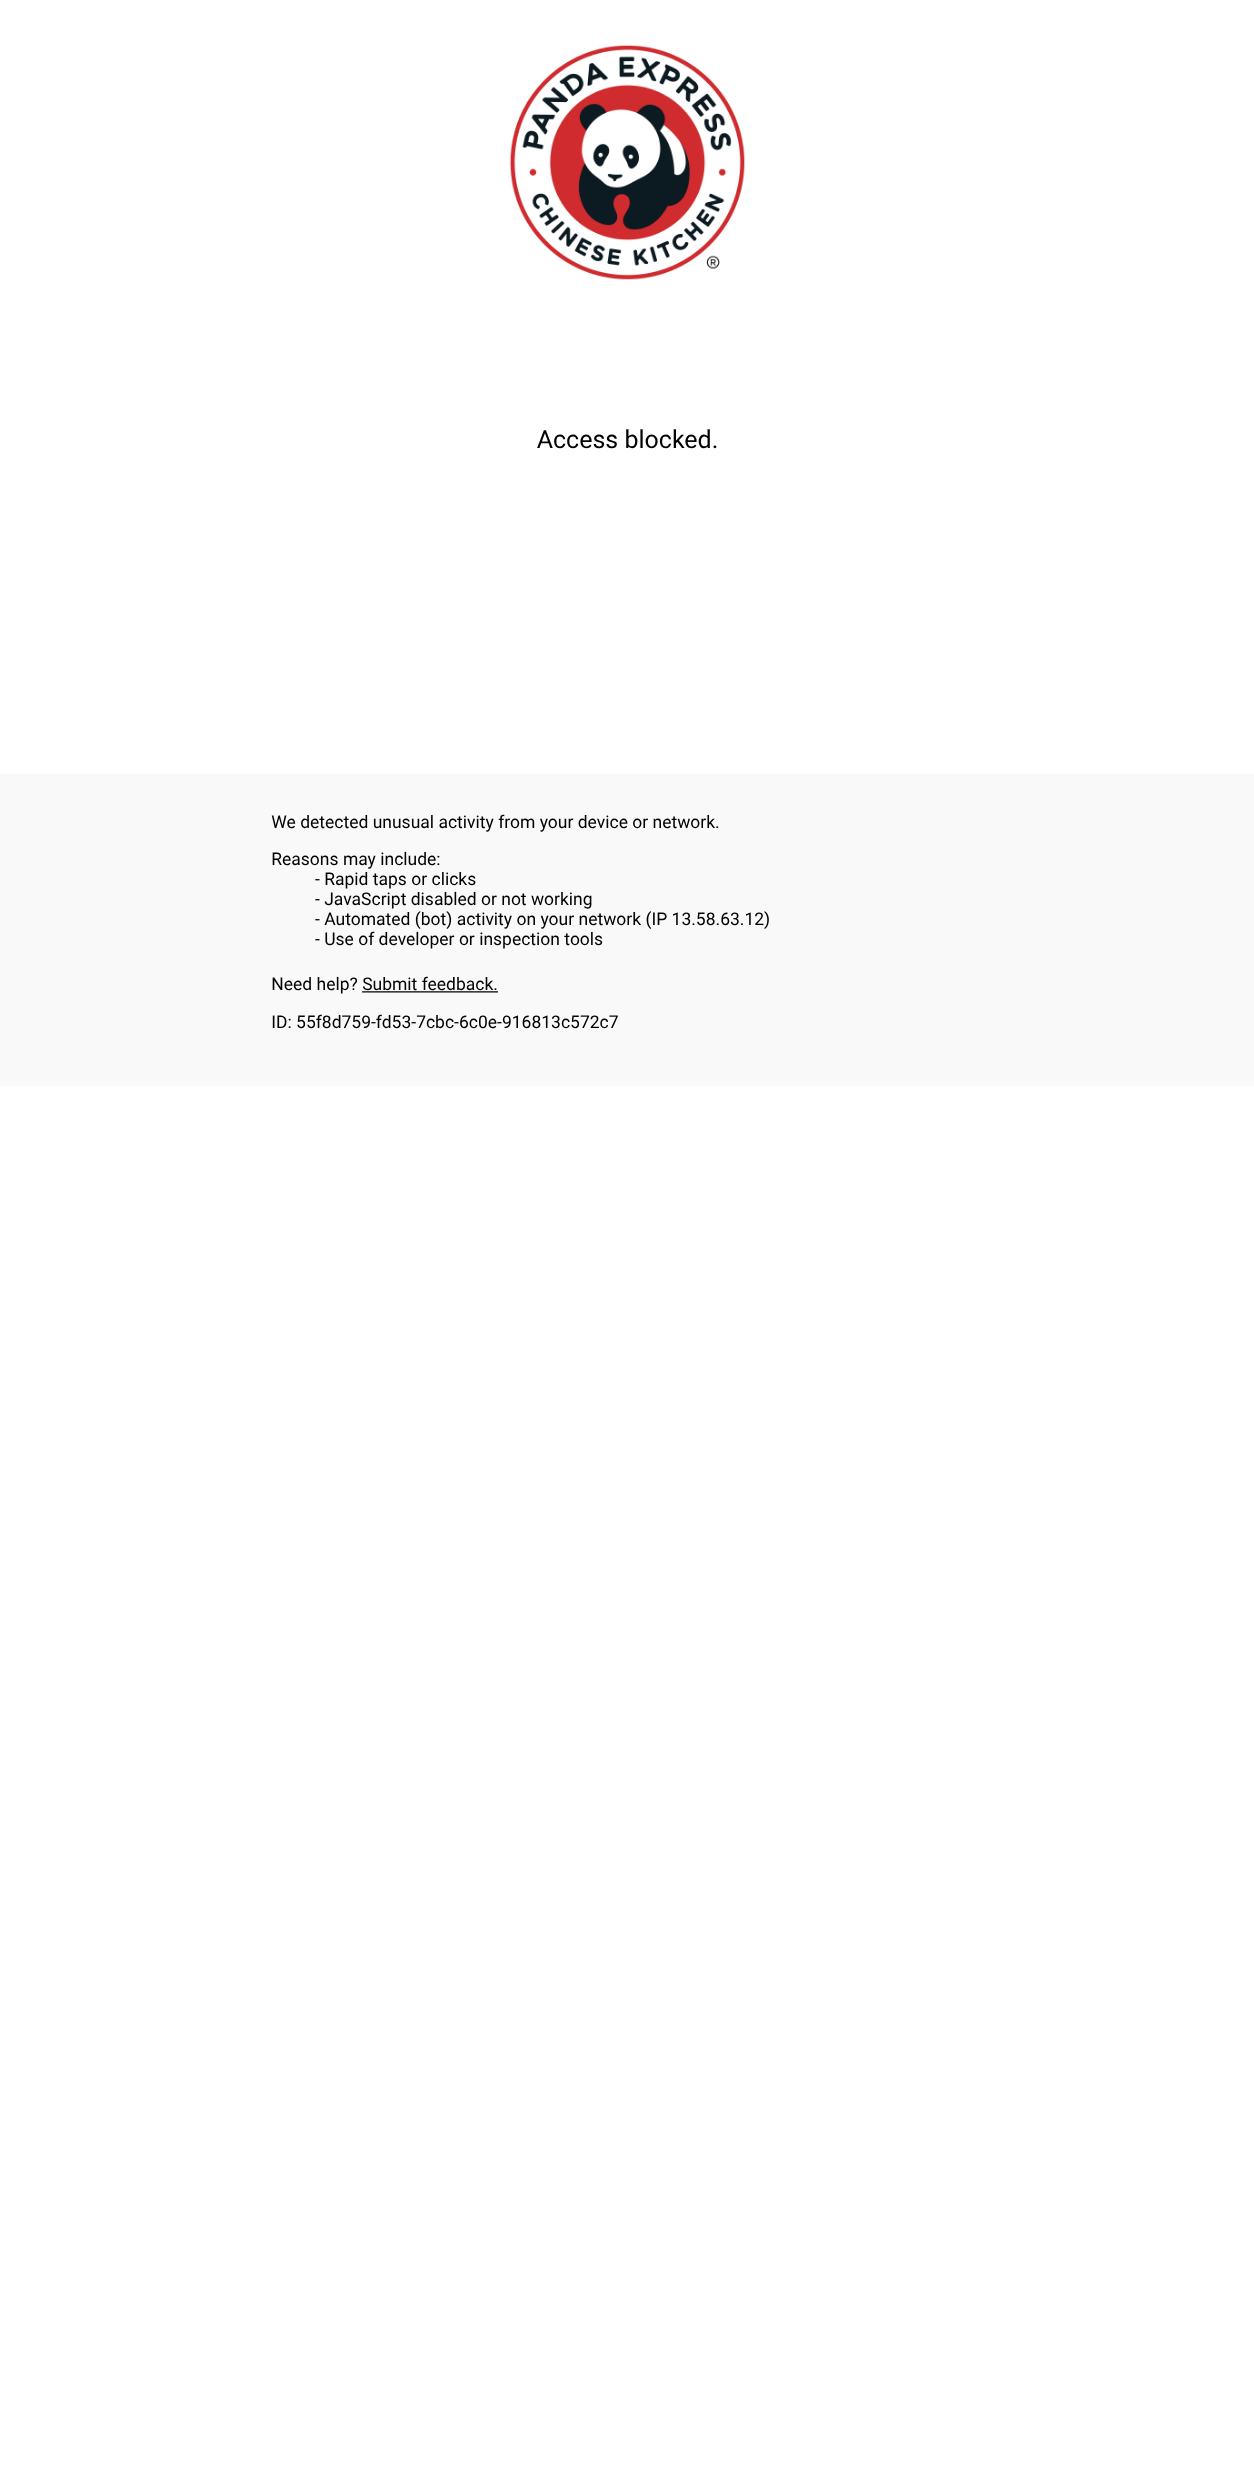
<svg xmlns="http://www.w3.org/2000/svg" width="1254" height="2465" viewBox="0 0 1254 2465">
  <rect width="100%" height="100%" fill="rgb(255,255,255)"/>
  <image x="0" y="45" width="1254" height="1041" href="pic1.png"/>
</svg>
